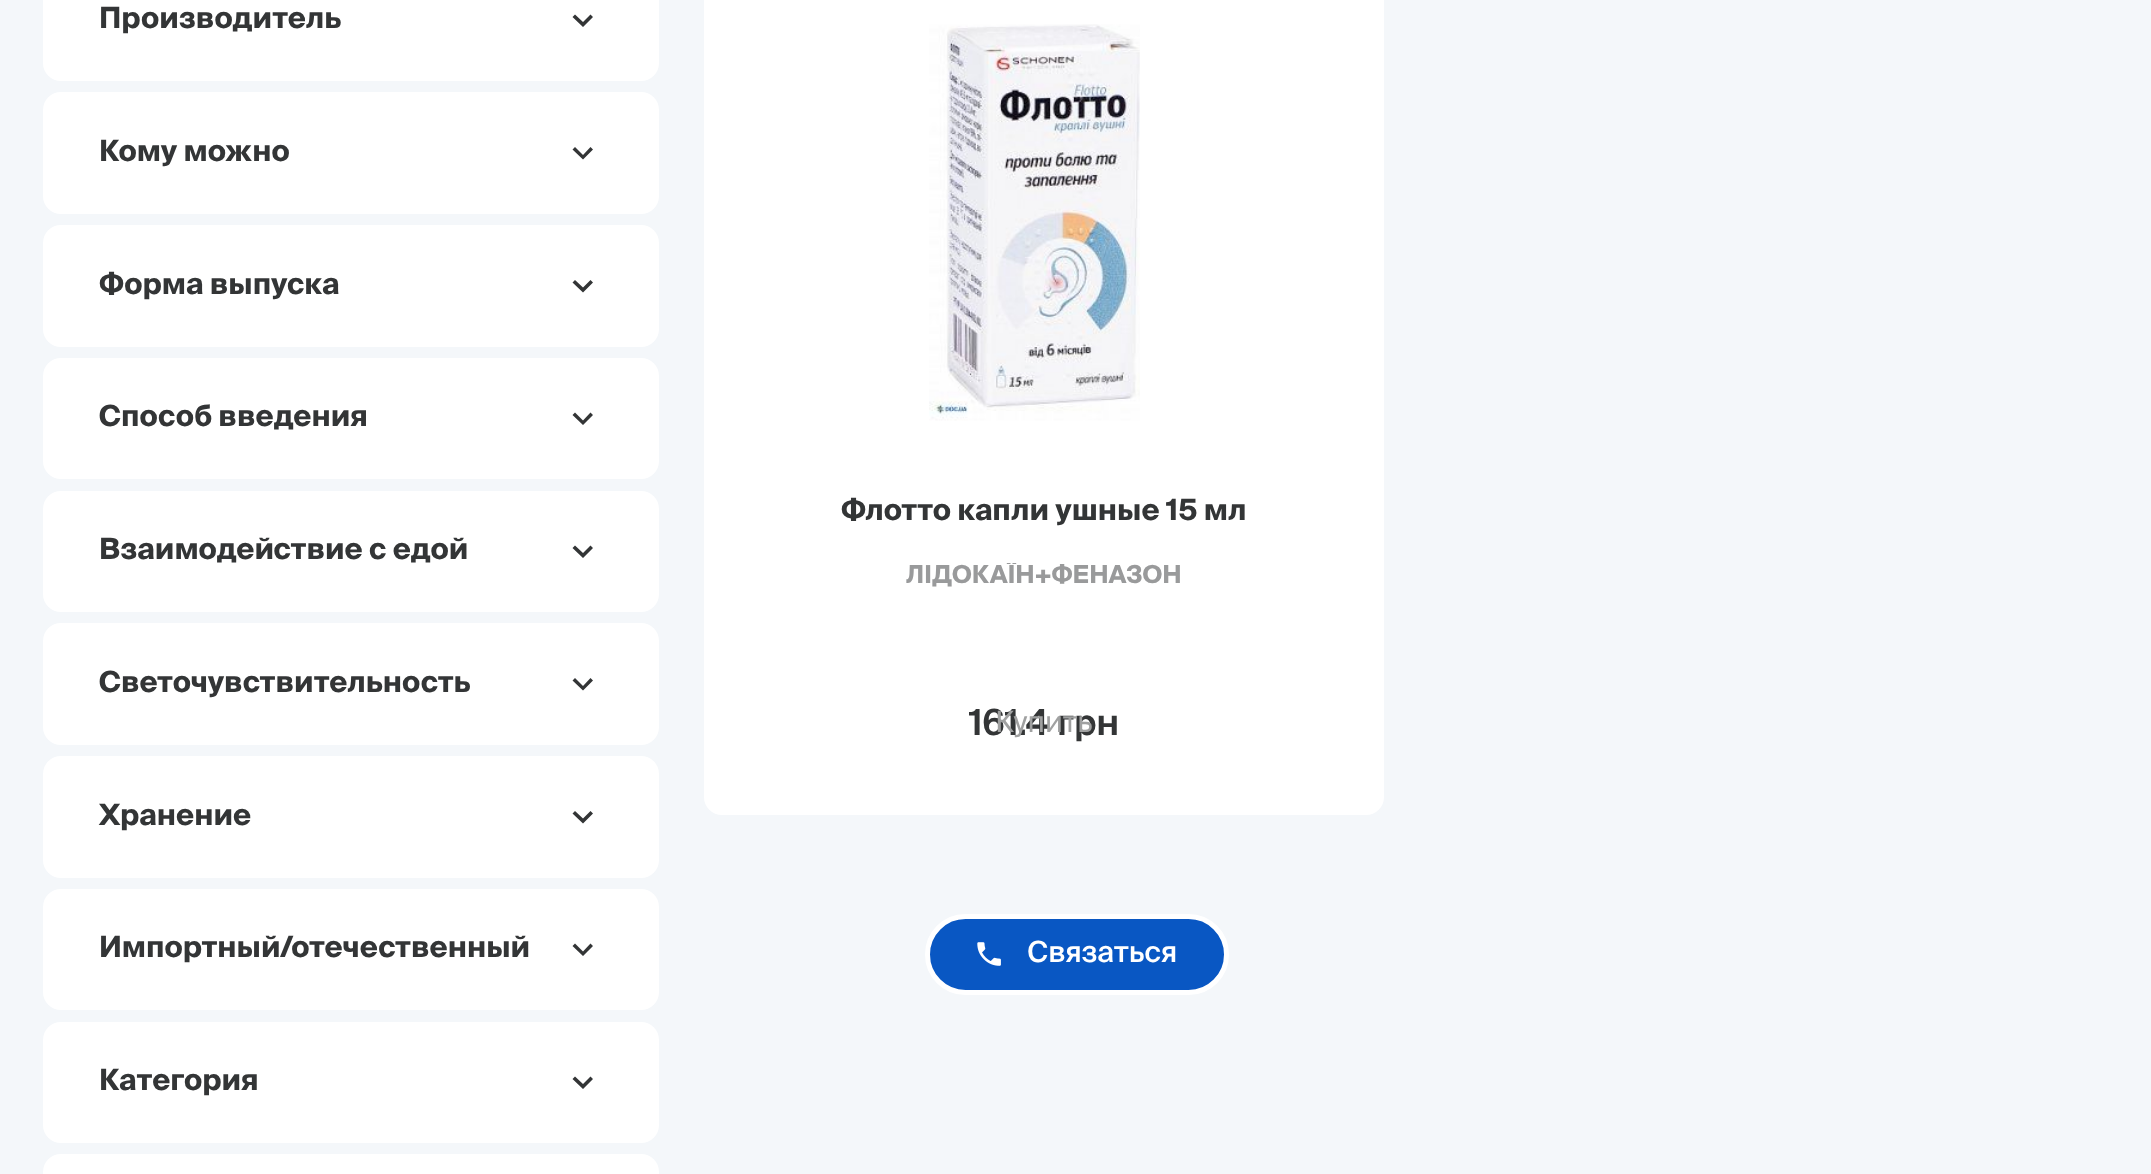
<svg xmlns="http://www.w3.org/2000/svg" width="2151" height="1174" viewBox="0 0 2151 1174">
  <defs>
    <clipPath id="clip1"><rect x="752" y="563" width="585" height="29"/></clipPath>
  </defs>
  <rect width="100%" height="100%" fill="rgb(244,247,250)"/>
  <rect x="43" y="-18" width="616" height="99" rx="18" fill="rgb(255,255,255)"/>
  <text x="99" y="28" font-family="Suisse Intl" font-size="29.25" font-weight="bold" fill="rgb(51,53,54)">Производитель</text>
  <path d="M590.5 14.5L593 17L583 27L572.5 17L575 14.5L583 22Z" fill="rgb(51,53,54)"/>
  <rect x="43" y="92" width="616" height="122" rx="18" fill="rgb(255,255,255)"/>
  <text x="99" y="161" font-family="Suisse Intl" font-size="29.25" font-weight="bold" fill="rgb(51,53,54)">Кому можно</text>
  <path d="M590.5 147L593 149.5L583 159.5L572.5 149.5L575 147L583 155Z" fill="rgb(51,53,54)"/>
  <rect x="43" y="225" width="616" height="122" rx="18" fill="rgb(255,255,255)"/>
  <text x="99" y="294" font-family="Suisse Intl" font-size="29.25" font-weight="bold" fill="rgb(51,53,54)">Форма выпуска</text>
  <path d="M590.5 280L593 282.5L583 292.5L572.5 282.5L575 280L583 287.5Z" fill="rgb(51,53,54)"/>
  <rect x="43" y="358" width="616" height="121" rx="18" fill="rgb(255,255,255)"/>
  <text x="99" y="426" font-family="Suisse Intl" font-size="29.25" font-weight="bold" fill="rgb(51,53,54)">Способ введения</text>
  <path d="M590.5 412.5L593 415L583 425L572.5 415L575 412.5L583 420.5Z" fill="rgb(51,53,54)"/>
  <rect x="43" y="491" width="616" height="121" rx="18" fill="rgb(255,255,255)"/>
  <text x="99" y="559" font-family="Suisse Intl" font-size="29.25" font-weight="bold" fill="rgb(51,53,54)">Взаимодействие с едой</text>
  <path d="M590.5 545.5L593 548L583 558L572.5 548L575 545.5L583 553Z" fill="rgb(51,53,54)"/>
  <rect x="43" y="623" width="616" height="122" rx="18" fill="rgb(255,255,255)"/>
  <text x="99" y="692" font-family="Suisse Intl" font-size="29.25" font-weight="bold" fill="rgb(51,53,54)">Светочувствительность</text>
  <path d="M590.5 678L593 680.5L583 690.5L572.5 680.5L575 678L583 686Z" fill="rgb(51,53,54)"/>
  <rect x="43" y="756" width="616" height="122" rx="18" fill="rgb(255,255,255)"/>
  <text x="99" y="825" font-family="Suisse Intl" font-size="29.25" font-weight="bold" fill="rgb(51,53,54)">Хранение</text>
  <path d="M590.5 811L593 813.5L583 823.5L572.5 813.5L575 811L583 818.5Z" fill="rgb(51,53,54)"/>
  <rect x="43" y="889" width="616" height="121" rx="18" fill="rgb(255,255,255)"/>
  <text x="99" y="957" font-family="Suisse Intl" font-size="29.25" font-weight="bold" fill="rgb(51,53,54)">Импортный/отечественный</text>
  <path d="M590.5 943.5L593 946L583 956L572.5 946L575 943.5L583 951.5Z" fill="rgb(51,53,54)"/>
  <rect x="43" y="1022" width="616" height="121" rx="18" fill="rgb(255,255,255)"/>
  <text x="99" y="1090" font-family="Suisse Intl" font-size="29.25" font-weight="bold" fill="rgb(51,53,54)">Категория</text>
  <path d="M590.5 1076.5L593 1079L583 1089L572.5 1079L575 1076.5L583 1084Z" fill="rgb(51,53,54)"/>
  <rect x="43" y="1154" width="616" height="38" rx="18" fill="rgb(255,255,255)"/>
  <rect x="704" y="-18" width="680" height="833" rx="18" fill="rgb(255,255,255)"/>
  <image x="929" y="24" width="211" height="397" href="pic1.png"/>
  <text x="841" y="520" font-family="Suisse Intl" font-size="29.25" font-weight="bold" fill="rgb(51,53,54)">Флотто капли ушные 15 мл</text>
  <g clip-path="url(#clip1)">
    <text x="906" y="583" font-family="Suisse Intl" font-size="24.75" font-weight="bold" fill="rgb(153,154,155)">ЛІДОКАЇН+ФЕНАЗОН</text>
  </g>
  <text x="969" y="735" font-family="Suisse Intl" font-size="36" font-weight="600" fill="rgb(51,53,54)">161.4 грн</text>
  <text x="995" y="732" font-family="Suisse Intl" font-size="29.25" fill="rgb(160,161,161)">Купить</text>
  <rect x="927.5" y="916.5" width="299" height="76" rx="38" fill="rgb(9,87,195)" stroke="rgb(255,255,255)" stroke-width="5"/>
  <image x="977" y="942" width="24" height="24" href="pic2.png"/>
  <text x="1027" y="962" font-family="Suisse Intl" font-size="29.25" font-weight="500" fill="rgb(255,255,255)">Связаться</text>
</svg>
